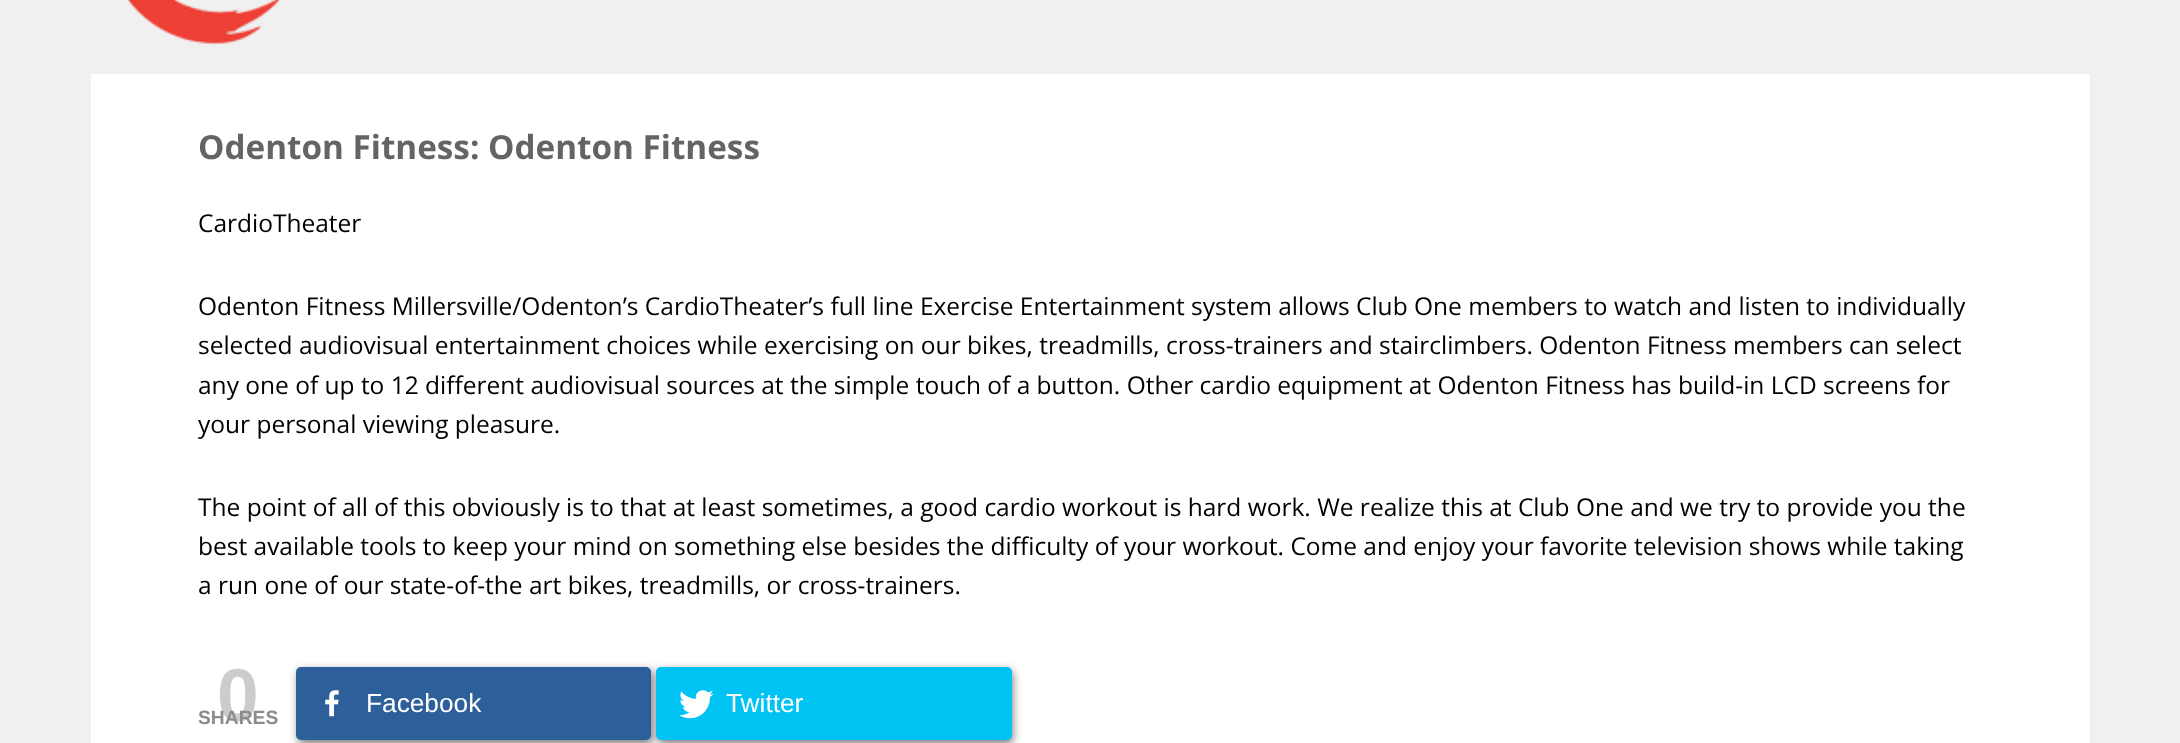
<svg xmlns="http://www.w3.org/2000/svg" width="2180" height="743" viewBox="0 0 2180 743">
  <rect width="100%" height="100%" fill="rgb(241,240,240)"/>
  <image x="127" y="0" width="154" height="45" href="pic1.png"/>
  <rect x="92" y="75" width="1997" height="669" fill="none" stroke="rgb(255,255,255)" stroke-width="2"/>
  <rect x="93" y="76" width="1995" height="667" fill="rgb(255,255,255)"/>
  <text x="198" y="159" font-family="Open Sans" font-size="33.25" font-weight="bold" fill="rgb(100,100,100)">Odenton Fitness: Odenton Fitness</text>
  <g font-family="Open Sans" font-size="24.5" fill="rgb(0,0,0)">
    <text x="198" y="232">CardioTheater</text>
    <text>
      <tspan x="198" y="315">Odenton Fitness Millersville/Odenton’s CardioTheater’s full line Exercise Entertainment system allows Club One members to watch and listen to individually</tspan>
      <tspan x="198" y="354">selected audiovisual entertainment choices while exercising on our bikes, treadmills, cross-trainers and stairclimbers. Odenton Fitness members can select</tspan>
      <tspan x="198" y="394">any one of up to 12 different audiovisual sources at the simple touch of a button. Other cardio equipment at Odenton Fitness has build-in LCD screens for</tspan>
      <tspan x="198" y="433">your personal viewing pleasure.</tspan>
    </text>
    <text>
      <tspan x="198" y="516">The point of all of this obviously is to that at least sometimes, a good cardio workout is hard work. We realize this at Club One and we try to provide you the</tspan>
      <tspan x="198" y="555">best available tools to keep your mind on something else besides the difficulty of your workout. Come and enjoy your favorite television shows while taking</tspan>
      <tspan x="198" y="594">a run one of our state-of-the art bikes, treadmills, or cross-trainers.</tspan>
    </text>
  </g>
  <text x="217" y="721" font-family="Liberation Sans" font-size="75" font-weight="bold" fill="rgb(204,204,204)">0</text>
  <text x="198" y="724" font-family="Liberation Sans" font-size="19.25" font-weight="bold" fill="rgb(138,140,142)">SHARES</text>
  <rect x="298" y="670" width="355" height="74" rx="5" fill="rgba(0,0,0,0.51)" filter="blur(4.5px)"/>
  <rect x="296" y="667" width="355" height="73" rx="5" fill="rgb(45,95,154)"/>
  <image x="325" y="690" width="14" height="27" href="pic2.png"/>
  <text x="366" y="712" font-family="Liberation Sans" font-size="26.25" fill="rgb(255,255,255)">Facebook</text>
  <rect x="658" y="670" width="355" height="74" rx="5" fill="rgba(0,0,0,0.51)" filter="blur(4.5px)"/>
  <rect x="656" y="667" width="356" height="73" rx="5" fill="rgb(0,195,243)"/>
  <image x="679" y="690" width="35" height="29" href="pic3.png"/>
  <text x="726" y="712" font-family="Liberation Sans" font-size="26.25" fill="rgb(255,255,255)">Twitter</text>
</svg>
